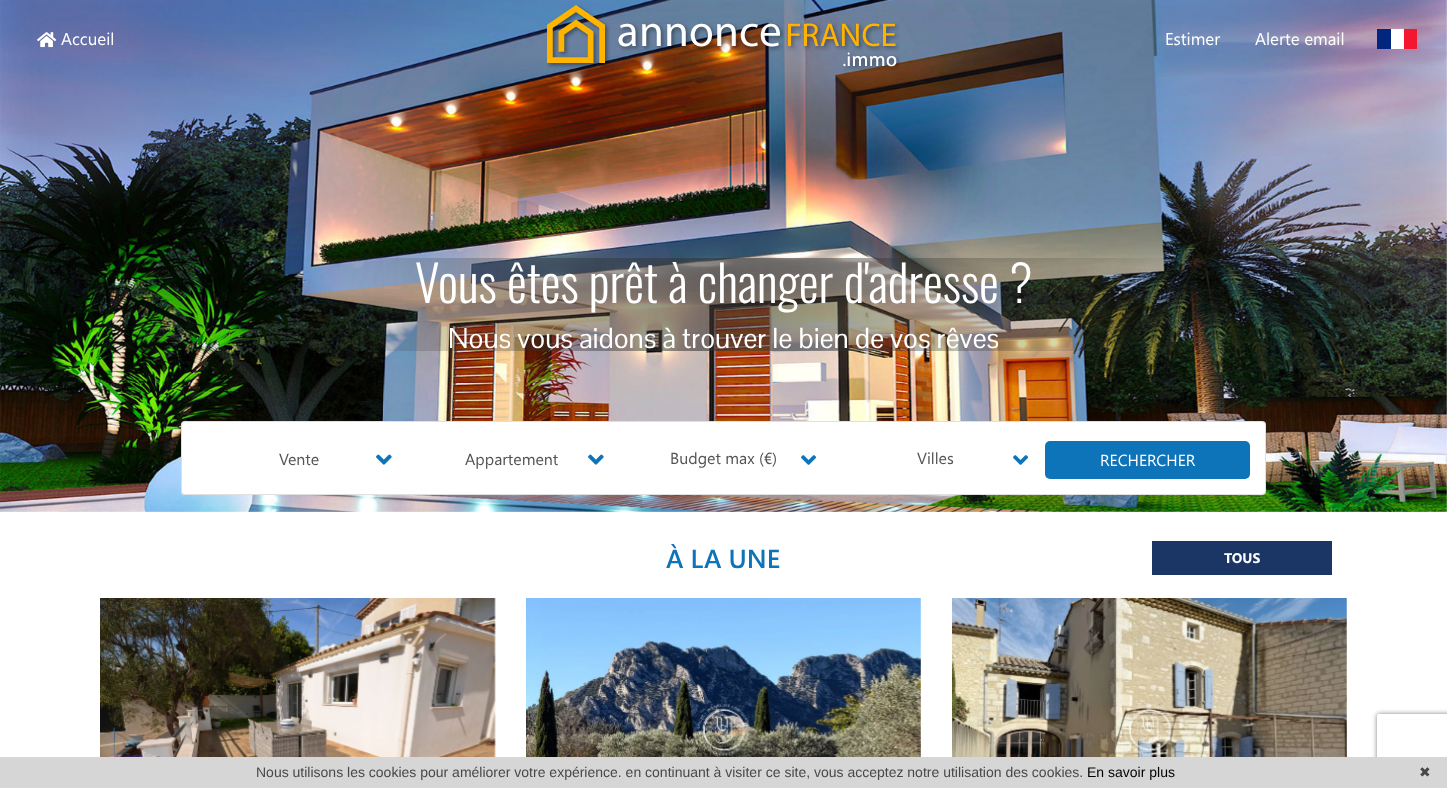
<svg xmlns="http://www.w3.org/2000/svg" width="1447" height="788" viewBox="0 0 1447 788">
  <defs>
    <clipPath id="clip1"><path d="M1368 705H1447V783H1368ZM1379 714H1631C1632 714 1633 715 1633 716V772C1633 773 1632 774 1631 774H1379C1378 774 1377 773 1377 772V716C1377 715 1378 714 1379 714Z" clip-rule="evenodd"/></clipPath>
  </defs>
  <rect width="100%" height="100%" fill="rgb(255,255,255)"/>
  <image x="0" y="0" width="1447" height="512" href="pic5.png"/>
  <image x="37" y="32" width="20" height="16" href="pic1.png"/>
  <text x="61" y="45" font-family="Segoe UI" font-size="17" fill="rgb(255,255,255)">Accueil</text>
  <image x="547" y="5" width="353" height="66" href="pic2.png"/>
  <g font-family="Segoe UI" font-size="17" fill="rgb(255,255,255)">
    <text x="1165" y="45">Estimer</text>
    <text x="1255" y="45">Alerte email</text>
  </g>
  <rect x="1391" y="29" width="13" height="20" fill="rgb(255,255,255)"/>
  <rect x="1377" y="29" width="14" height="20" fill="rgb(0,38,127)"/>
  <rect x="1404" y="29" width="13" height="20" fill="rgb(243,24,48)"/>
  <text x="415" y="303" font-family="Oswald" font-size="50" font-weight="300" fill="rgb(255,255,255)">Vous êtes prêt à changer d'adresse ?</text>
  <text x="448" y="348" font-family="Pontano Sans" font-size="28" fill="rgb(255,255,255)">Nous vous aidons à trouver le bien de vos rêves</text>
  <rect x="181" y="421" width="1085" height="74" rx="4" fill="rgb(255,255,255)"/>
  <rect x="181.5" y="421.5" width="1084" height="73" rx="3.5" fill="none" stroke="rgba(0,0,0,0.12)"/>
  <text x="279" y="465" font-family="Segoe UI" font-size="16" fill="rgb(84,84,84)">Vente</text>
  <image x="376" y="454" width="16" height="11" href="pic3.png"/>
  <text x="465" y="465" font-family="Segoe UI" font-size="16" fill="rgb(84,84,84)">Appartement</text>
  <image x="588" y="454" width="16" height="11" href="pic3.png"/>
  <text x="670" y="464" font-family="Segoe UI" font-size="16" fill="rgb(84,84,84)">Budget max (€)</text>
  <image x="801" y="455" width="15" height="10" href="pic4.png"/>
  <text x="917" y="464" font-family="Segoe UI" font-size="16" fill="rgb(84,84,84)">Villes</text>
  <image x="1013" y="455" width="15" height="10" href="pic4.png"/>
  <rect x="1045" y="441" width="205" height="38" rx="5" fill="rgb(13,116,185)"/>
  <text x="1100" y="466" font-family="Segoe UI" font-size="16" fill="rgb(255,255,255)">RECHERCHER</text>
  <text x="666" y="568" font-family="Segoe UI" font-size="26" font-weight="600" fill="rgb(13,116,185)">À LA UNE</text>
  <rect x="1152" y="541" width="180" height="34" fill="rgb(27,54,101)"/>
  <text x="1224" y="563" font-family="Segoe UI" font-size="14" font-weight="bold" fill="rgb(255,255,255)">TOUS</text>
  <image x="100" y="598" width="396" height="159" href="pic6.png"/>
  <image x="526" y="598" width="395" height="159" href="pic7.png"/>
  <image x="952" y="598" width="395" height="159" href="pic8.png"/>
  <g clip-path="url(#clip1)">
    <rect x="1377" y="714" width="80" height="60" rx="2" fill="rgb(128,128,128)" filter="blur(2.5px)"/>
  </g>
  <rect x="0" y="757" width="1447" height="31" fill="rgb(214,214,214)"/>
  <text x="256" y="777" font-family="Liberation Sans" font-size="14" fill="rgb(72,72,72)">Nous utilisons les cookies pour améliorer votre expérience. en continuant à visiter ce site, vous acceptez notre utilisation des cookies.</text>
  <text x="1087" y="777" font-family="Liberation Sans" font-size="14" fill="rgb(0,0,0)">En savoir plus</text>
  <text x="1419" y="777" font-family="DejaVu Sans" font-size="14" fill="rgb(72,72,72)">✖</text>
</svg>
